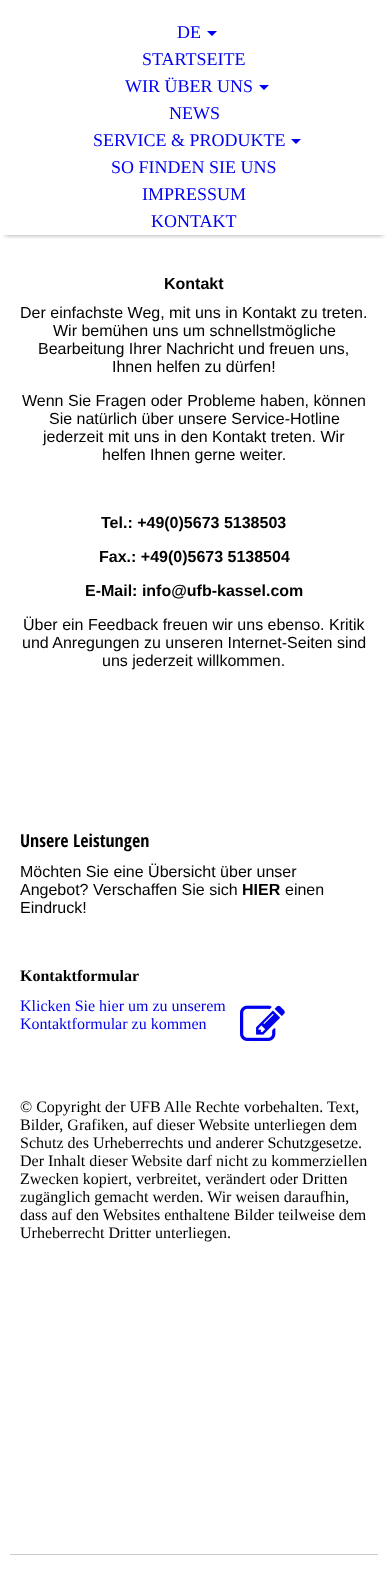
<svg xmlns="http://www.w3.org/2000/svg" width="388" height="1573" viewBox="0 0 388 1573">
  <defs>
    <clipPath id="clip1"><rect x="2" y="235" width="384" height="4"/></clipPath>
  </defs>
  <rect width="100%" height="100%" fill="rgb(255,255,255)"/>
  <g clip-path="url(#clip1)">
    <rect x="5" y="9" width="378" height="226" fill="rgba(0,0,0,0.4)" filter="blur(2.5px)"/>
  </g>
  <text x="177" y="38" font-family="Liberation Serif" font-size="18" fill="rgb(0,0,238)">DE</text>
  <path d="M207 31H217L212 36ZM259 85H269L264 90Z" fill="rgb(0,0,238)"/>
  <g font-family="Liberation Serif" font-size="18" fill="rgb(0,0,238)">
    <text x="142" y="65">STARTSEITE</text>
    <text x="125" y="92">WIR ÜBER UNS</text>
    <text x="169" y="119">NEWS</text>
    <text x="93" y="146">SERVICE &amp; PRODUKTE</text>
  </g>
  <path d="M291 139H301L296 144Z" fill="rgb(0,0,238)"/>
  <g font-family="Liberation Serif" font-size="18" fill="rgb(0,0,238)">
    <text x="111" y="173">SO FINDEN SIE UNS</text>
    <text x="142" y="200">IMPRESSUM</text>
    <text x="151" y="227">KONTAKT</text>
  </g>
  <text x="164" y="289" font-family="Liberation Sans" font-size="16" font-weight="bold" fill="rgb(0,0,0)">Kontakt</text>
  <g font-family="Liberation Sans" font-size="16" fill="rgb(0,0,0)">
    <text x="20" y="318">Der einfachste Weg, mit uns in Kontakt zu treten.</text>
    <text x="53" y="336">Wir bemühen uns um schnellstmögliche</text>
    <text x="38" y="354">Bearbeitung Ihrer Nachricht und freuen uns,</text>
    <text x="112" y="372">Ihnen helfen zu dürfen!</text>
    <text x="22" y="406">Wenn Sie Fragen oder Probleme haben, können</text>
    <text x="49" y="424">Sie natürlich über unsere Service-Hotline</text>
    <text x="43" y="442">jederzeit mit uns in den Kontakt treten. Wir</text>
    <text x="102" y="460">helfen Ihnen gerne weiter.</text>
  </g>
  <g font-family="Liberation Sans" font-size="16" font-weight="bold" fill="rgb(0,0,0)">
    <text x="101" y="528">Tel.: +49(0)5673 5138503</text>
    <text x="99" y="562">Fax.: +49(0)5673 5138504</text>
    <text x="85" y="596">E-Mail: info@ufb-kassel.com</text>
  </g>
  <g font-family="Liberation Sans" font-size="16" fill="rgb(0,0,0)">
    <text x="23" y="630">Über ein Feedback freuen wir uns ebenso. Kritik</text>
    <text x="22" y="648">und Anregungen zu unseren Internet-Seiten sind</text>
    <text x="102" y="666">uns jederzeit willkommen.</text>
  </g>
  <text x="20" y="847" font-family="Open Sans Condensed" font-size="18" font-weight="bold" fill="rgb(0,0,0)">Unsere Leistungen</text>
  <g font-family="Liberation Sans" font-size="16" fill="rgb(0,0,0)">
    <text>
      <tspan x="20" y="877">Möchten Sie eine Übersicht über unser</tspan>
      <tspan x="20" y="895">Angebot? Verschaffen Sie sich</tspan>
    </text>
  </g>
  <text x="242" y="895" font-family="Liberation Sans" font-size="16" font-weight="bold" fill="rgb(0,0,0)">HIER</text>
  <g font-family="Liberation Sans" font-size="16" fill="rgb(0,0,0)">
    <text x="285" y="895">einen</text>
    <text x="20" y="913">Eindruck!</text>
  </g>
  <text x="20" y="981" font-family="Liberation Serif" font-size="16" font-weight="bold" fill="rgb(0,0,0)">Kontaktformular</text>
  <g font-family="Liberation Serif" font-size="16" fill="rgb(0,0,238)">
    <text>
      <tspan x="20" y="1011">Klicken Sie hier um zu unserem</tspan>
      <tspan x="20" y="1029">Kontaktformular zu kommen</tspan>
    </text>
  </g>
  <image x="240" y="1005" width="45" height="36" href="pic1.png"/>
  <g font-family="Liberation Serif" font-size="16" fill="rgb(0,0,0)">
    <text>
      <tspan x="20" y="1112">© Copyright der UFB Alle Rechte vorbehalten. Text,</tspan>
      <tspan x="20" y="1130">Bilder, Grafiken, auf dieser Website unterliegen dem</tspan>
      <tspan x="20" y="1148">Schutz des Urheberrechts und anderer Schutzgesetze.</tspan>
      <tspan x="20" y="1166">Der Inhalt dieser Website darf nicht zu kommerziellen</tspan>
      <tspan x="20" y="1184">Zwecken kopiert, verbreitet, verändert oder Dritten</tspan>
      <tspan x="20" y="1202">zugänglich gemacht werden. Wir weisen daraufhin,</tspan>
      <tspan x="20" y="1220">dass auf den Websites enthaltene Bilder teilweise dem</tspan>
      <tspan x="20" y="1238">Urheberrecht Dritter unterliegen.</tspan>
    </text>
  </g>
  <rect x="10" y="1554" width="368" height="1" fill="rgb(204,204,204)"/>
</svg>
